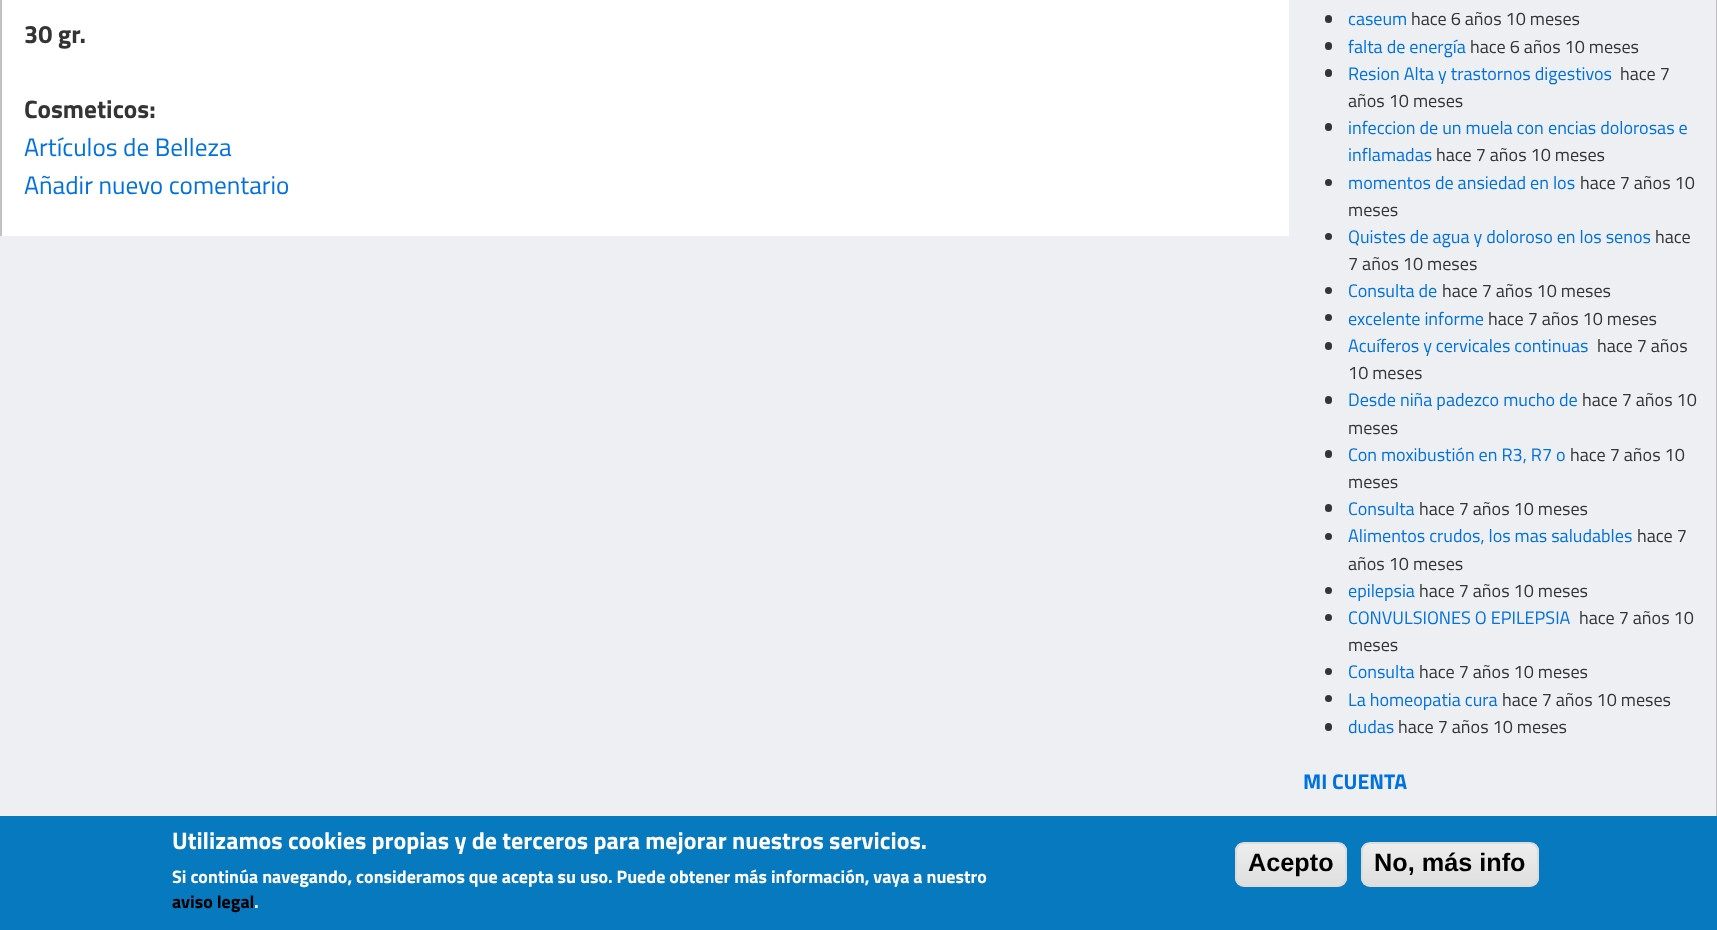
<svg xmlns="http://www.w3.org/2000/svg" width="1717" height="930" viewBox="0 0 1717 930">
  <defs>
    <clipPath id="clip1"><rect x="1235" y="842" width="112" height="45" rx="9"/></clipPath>
    <linearGradient id="g1" gradientUnits="userSpaceOnUse" x1="1236" y1="843" x2="1236" y2="885"><stop offset="0.05" stop-color="rgb(237,237,237)"/><stop offset="1" stop-color="rgb(223,223,223)"/></linearGradient>
    <clipPath id="clip2"><rect x="1361" y="842" width="178" height="45" rx="9"/></clipPath>
    <linearGradient id="g2" gradientUnits="userSpaceOnUse" x1="1362" y1="843" x2="1362" y2="885"><stop offset="0.05" stop-color="rgb(237,237,237)"/><stop offset="1" stop-color="rgb(223,223,223)"/></linearGradient>
  </defs>
  <rect width="100%" height="100%" fill="rgb(238,239,242)"/>
  <rect x="2" y="0" width="1287" height="236" fill="rgb(255,255,255)"/>
  <rect x="0" y="0" width="2" height="236" fill="rgb(193,193,193)"/>
  <g font-family="Titillium Web" font-size="25.25" font-weight="bold" fill="rgb(52,52,52)">
    <text x="24" y="43">30 gr.</text>
    <text x="24" y="118">Cosmeticos:</text>
  </g>
  <g font-family="Titillium Web" font-size="25.25" fill="rgb(0,113,224)">
    <text>
      <tspan x="24" y="156">Artículos de Belleza</tspan>
      <tspan x="24" y="194">Añadir nuevo comentario</tspan>
    </text>
  </g>
  <rect x="1716" y="0" width="1" height="822" fill="rgb(193,193,193)"/>
  <rect x="1325" y="15" width="7" height="8" rx="3.5" fill="rgb(52,52,52)"/>
  <text x="1348" y="25" font-family="Titillium Web" font-size="18.1" fill="rgb(0,113,224)">caseum</text>
  <text x="1411" y="25" font-family="Titillium Web" font-size="18.1" fill="rgb(52,52,52)">hace 6 años 10 meses</text>
  <rect x="1325" y="42" width="7" height="8" rx="3.5" fill="rgb(52,52,52)"/>
  <text x="1348" y="53" font-family="Titillium Web" font-size="18.1" fill="rgb(0,113,224)">falta de energía</text>
  <text x="1470" y="53" font-family="Titillium Web" font-size="18.1" fill="rgb(52,52,52)">hace 6 años 10 meses</text>
  <rect x="1325" y="69" width="7" height="8" rx="3.5" fill="rgb(52,52,52)"/>
  <text x="1348" y="80" font-family="Titillium Web" font-size="18.1" fill="rgb(0,113,224)">Resion Alta y trastornos digestivos</text>
  <g font-family="Titillium Web" font-size="18.1" fill="rgb(52,52,52)">
    <text x="1620" y="80">hace 7</text>
    <text x="1348" y="107">años 10 meses</text>
  </g>
  <rect x="1325" y="123" width="7" height="8" rx="3.5" fill="rgb(52,52,52)"/>
  <g font-family="Titillium Web" font-size="18.1" fill="rgb(0,113,224)">
    <text x="1348" y="134">infeccion de un muela con</text>
    <text x="1548" y="134">encias dolorosas e</text>
    <text x="1348" y="161">inflamadas</text>
  </g>
  <text x="1436" y="161" font-family="Titillium Web" font-size="18.1" fill="rgb(52,52,52)">hace 7 años 10 meses</text>
  <circle cx="1328.5" cy="182.5" r="3.5" fill="rgb(52,52,52)"/>
  <text x="1348" y="189" font-family="Titillium Web" font-size="18.1" fill="rgb(0,113,224)">momentos de ansiedad en los</text>
  <g font-family="Titillium Web" font-size="18.1" fill="rgb(52,52,52)">
    <text x="1580" y="189">hace 7 años 10</text>
    <text x="1348" y="216">meses</text>
  </g>
  <circle cx="1328.5" cy="236.5" r="3.5" fill="rgb(52,52,52)"/>
  <text x="1348" y="243" font-family="Titillium Web" font-size="18.1" fill="rgb(0,113,224)">Quistes de agua y doloroso en los senos</text>
  <g font-family="Titillium Web" font-size="18.1" fill="rgb(52,52,52)">
    <text x="1655" y="243">hace</text>
    <text x="1348" y="270">7 años 10 meses</text>
  </g>
  <circle cx="1328.5" cy="290.5" r="3.5" fill="rgb(52,52,52)"/>
  <text x="1348" y="297" font-family="Titillium Web" font-size="18.1" fill="rgb(0,113,224)">Consulta de</text>
  <text x="1442" y="297" font-family="Titillium Web" font-size="18.1" fill="rgb(52,52,52)">hace 7 años 10 meses</text>
  <circle cx="1328.5" cy="317.5" r="3.5" fill="rgb(52,52,52)"/>
  <text x="1348" y="325" font-family="Titillium Web" font-size="18.1" fill="rgb(0,113,224)">excelente informe</text>
  <text x="1488" y="325" font-family="Titillium Web" font-size="18.1" fill="rgb(52,52,52)">hace 7 años 10 meses</text>
  <rect x="1325" y="342" width="7" height="8" rx="3.5" fill="rgb(52,52,52)"/>
  <text x="1348" y="352" font-family="Titillium Web" font-size="18.1" fill="rgb(0,113,224)">Acuíferos y cervicales continuas</text>
  <g font-family="Titillium Web" font-size="18.1" fill="rgb(52,52,52)">
    <text x="1597" y="352">hace 7 años</text>
    <text x="1348" y="379">10 meses</text>
  </g>
  <rect x="1325" y="396" width="7" height="8" rx="3.5" fill="rgb(52,52,52)"/>
  <text x="1348" y="406" font-family="Titillium Web" font-size="18.1" fill="rgb(0,113,224)">Desde niña padezco mucho de</text>
  <g font-family="Titillium Web" font-size="18.1" fill="rgb(52,52,52)">
    <text x="1582" y="406">hace 7 años 10</text>
    <text x="1348" y="434">meses</text>
  </g>
  <rect x="1325" y="450" width="7" height="8" rx="3.5" fill="rgb(52,52,52)"/>
  <text x="1348" y="461" font-family="Titillium Web" font-size="18.1" fill="rgb(0,113,224)">Con moxibustión en R3, R7 o</text>
  <g font-family="Titillium Web" font-size="18.1" fill="rgb(52,52,52)">
    <text x="1570" y="461">hace 7 años 10</text>
    <text x="1348" y="488">meses</text>
  </g>
  <rect x="1325" y="504" width="7" height="8" rx="3.5" fill="rgb(52,52,52)"/>
  <text x="1348" y="515" font-family="Titillium Web" font-size="18.1" fill="rgb(0,113,224)">Consulta</text>
  <text x="1419" y="515" font-family="Titillium Web" font-size="18.1" fill="rgb(52,52,52)">hace 7 años 10 meses</text>
  <circle cx="1328.5" cy="536.5" r="3.5" fill="rgb(52,52,52)"/>
  <text x="1348" y="542" font-family="Titillium Web" font-size="18.1" fill="rgb(0,113,224)">Alimentos crudos, los mas saludables</text>
  <g font-family="Titillium Web" font-size="18.1" fill="rgb(52,52,52)">
    <text x="1637" y="542">hace 7</text>
    <text x="1348" y="570">años 10 meses</text>
  </g>
  <circle cx="1328.5" cy="590.5" r="3.5" fill="rgb(52,52,52)"/>
  <text x="1348" y="597" font-family="Titillium Web" font-size="18.1" fill="rgb(0,113,224)">epilepsia</text>
  <text x="1419" y="597" font-family="Titillium Web" font-size="18.1" fill="rgb(52,52,52)">hace 7 años 10 meses</text>
  <circle cx="1328.5" cy="617.5" r="3.5" fill="rgb(52,52,52)"/>
  <text x="1348" y="624" font-family="Titillium Web" font-size="18.1" fill="rgb(0,113,224)">CONVULSIONES O EPILEPSIA</text>
  <g font-family="Titillium Web" font-size="18.1" fill="rgb(52,52,52)">
    <text x="1579" y="624">hace 7 años 10</text>
    <text x="1348" y="651">meses</text>
  </g>
  <circle cx="1328.5" cy="671.5" r="3.5" fill="rgb(52,52,52)"/>
  <text x="1348" y="678" font-family="Titillium Web" font-size="18.1" fill="rgb(0,113,224)">Consulta</text>
  <text x="1419" y="678" font-family="Titillium Web" font-size="18.1" fill="rgb(52,52,52)">hace 7 años 10 meses</text>
  <circle cx="1328.5" cy="698.5" r="3.5" fill="rgb(52,52,52)"/>
  <text x="1348" y="706" font-family="Titillium Web" font-size="18.1" fill="rgb(0,113,224)">La homeopatia cura</text>
  <text x="1502" y="706" font-family="Titillium Web" font-size="18.1" fill="rgb(52,52,52)">hace 7 años 10 meses</text>
  <rect x="1325" y="723" width="7" height="8" rx="3.5" fill="rgb(52,52,52)"/>
  <text x="1348" y="733" font-family="Titillium Web" font-size="18.1" fill="rgb(0,113,224)">dudas</text>
  <text x="1398" y="733" font-family="Titillium Web" font-size="18.1" fill="rgb(52,52,52)">hace 7 años 10 meses</text>
  <text x="1303" y="789" font-family="Titillium Web" font-size="21.25" font-weight="bold" fill="rgb(0,113,224)">MI CUENTA</text>
  <rect x="0" y="816" width="1717" height="114" fill="rgb(7,121,191)"/>
  <text x="172" y="849" font-family="Titillium Web" font-size="24" font-weight="bold" fill="rgb(255,255,255)">Utilizamos cookies propias y de terceros para mejorar nuestros servicios.</text>
  <text x="172" y="883" font-family="Titillium Web" font-size="18" font-weight="bold" fill="rgb(255,255,255)">Si continúa navegando, consideramos que acepta su uso. Puede obtener más información, vaya a nuestro</text>
  <text x="172" y="908" font-family="Titillium Web" font-size="18" font-weight="bold" fill="rgb(0,0,0)">aviso legal</text>
  <text x="254" y="908" font-family="Titillium Web" font-size="18" font-weight="bold" fill="rgb(255,255,255)">.</text>
  <g clip-path="url(#clip1)">
    <rect x="1235" y="843" width="112" height="42" fill="url(#g1)"/>
  </g>
  <rect x="1236" y="843" width="110" height="43" rx="8" fill="none" stroke="rgb(220,220,220)" stroke-width="2"/>
  <text x="1248" y="871" font-family="Liberation Sans" font-size="25.25" font-weight="bold" fill="rgb(0,0,0)">Acepto</text>
  <g clip-path="url(#clip2)">
    <rect x="1361" y="843" width="178" height="42" fill="url(#g2)"/>
  </g>
  <rect x="1362" y="843" width="176" height="43" rx="8" fill="none" stroke="rgb(220,220,220)" stroke-width="2"/>
  <text x="1374" y="871" font-family="Liberation Sans" font-size="25.25" font-weight="bold" fill="rgb(0,0,0)">No, más info</text>
</svg>
